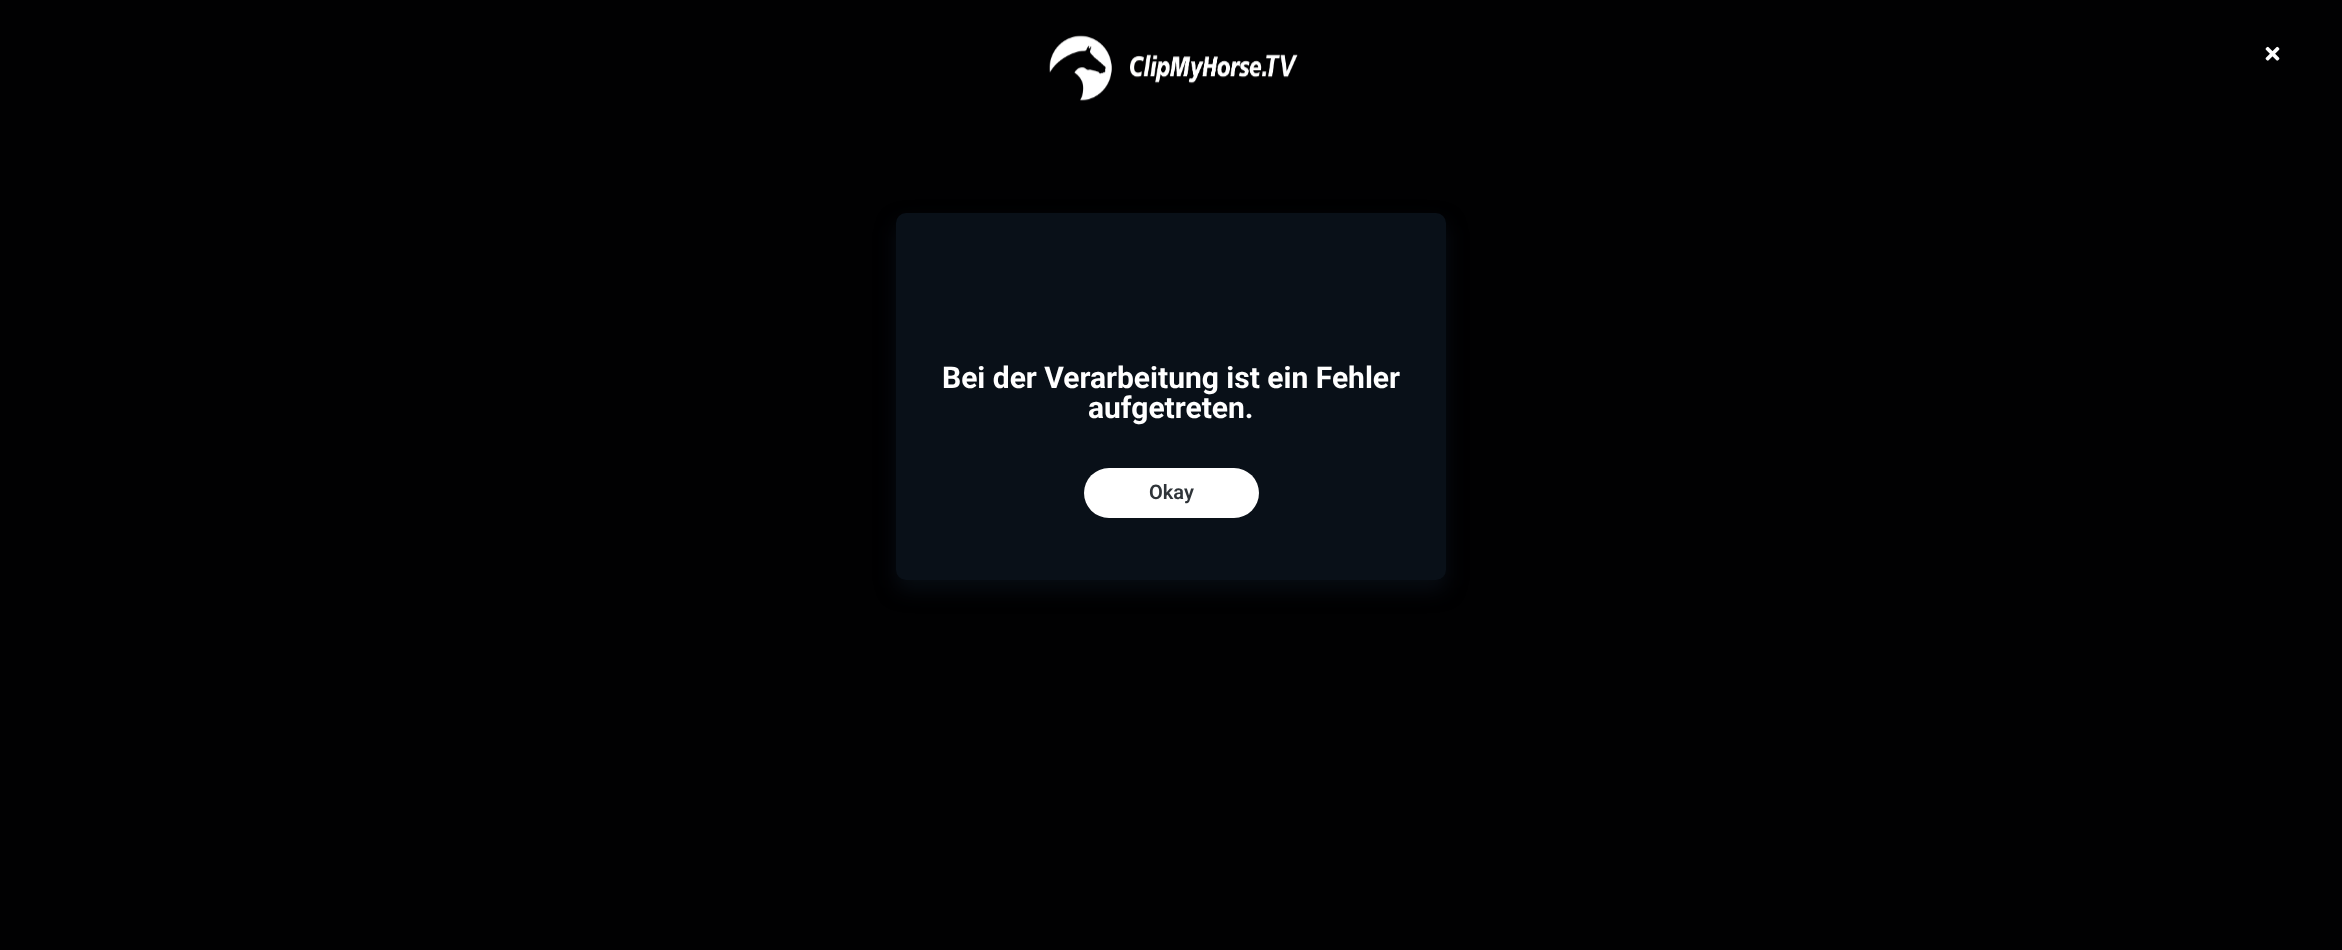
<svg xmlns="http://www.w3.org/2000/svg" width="2342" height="950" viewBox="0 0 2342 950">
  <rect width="100%" height="100%" fill="rgb(1,1,2)"/>
  <image x="1049" y="35" width="63" height="66" href="pic1.png"/>
  <image x="1130" y="54" width="168" height="30" href="pic2.png"/>
  <image x="2265" y="46" width="15" height="15" href="pic3.png"/>
  <rect x="896" y="223" width="550" height="367" rx="10" fill="rgba(9,16,24,0.75)" filter="blur(10px)"/>
  <rect x="896" y="213" width="550" height="367" rx="10" fill="rgb(9,16,24)"/>
  <g font-family="Roboto" font-size="30" font-weight="bold" fill="rgb(255,255,255)">
    <text x="942" y="388">Bei der Verarbeitung ist ein Fehler</text>
    <text x="1088" y="418">aufgetreten.</text>
  </g>
  <rect x="1084" y="468" width="175" height="50" rx="25" fill="rgb(255,255,255)"/>
  <text x="1149" y="499" font-family="Roboto" font-size="20" font-weight="600" fill="rgb(47,52,57)">Okay</text>
</svg>
